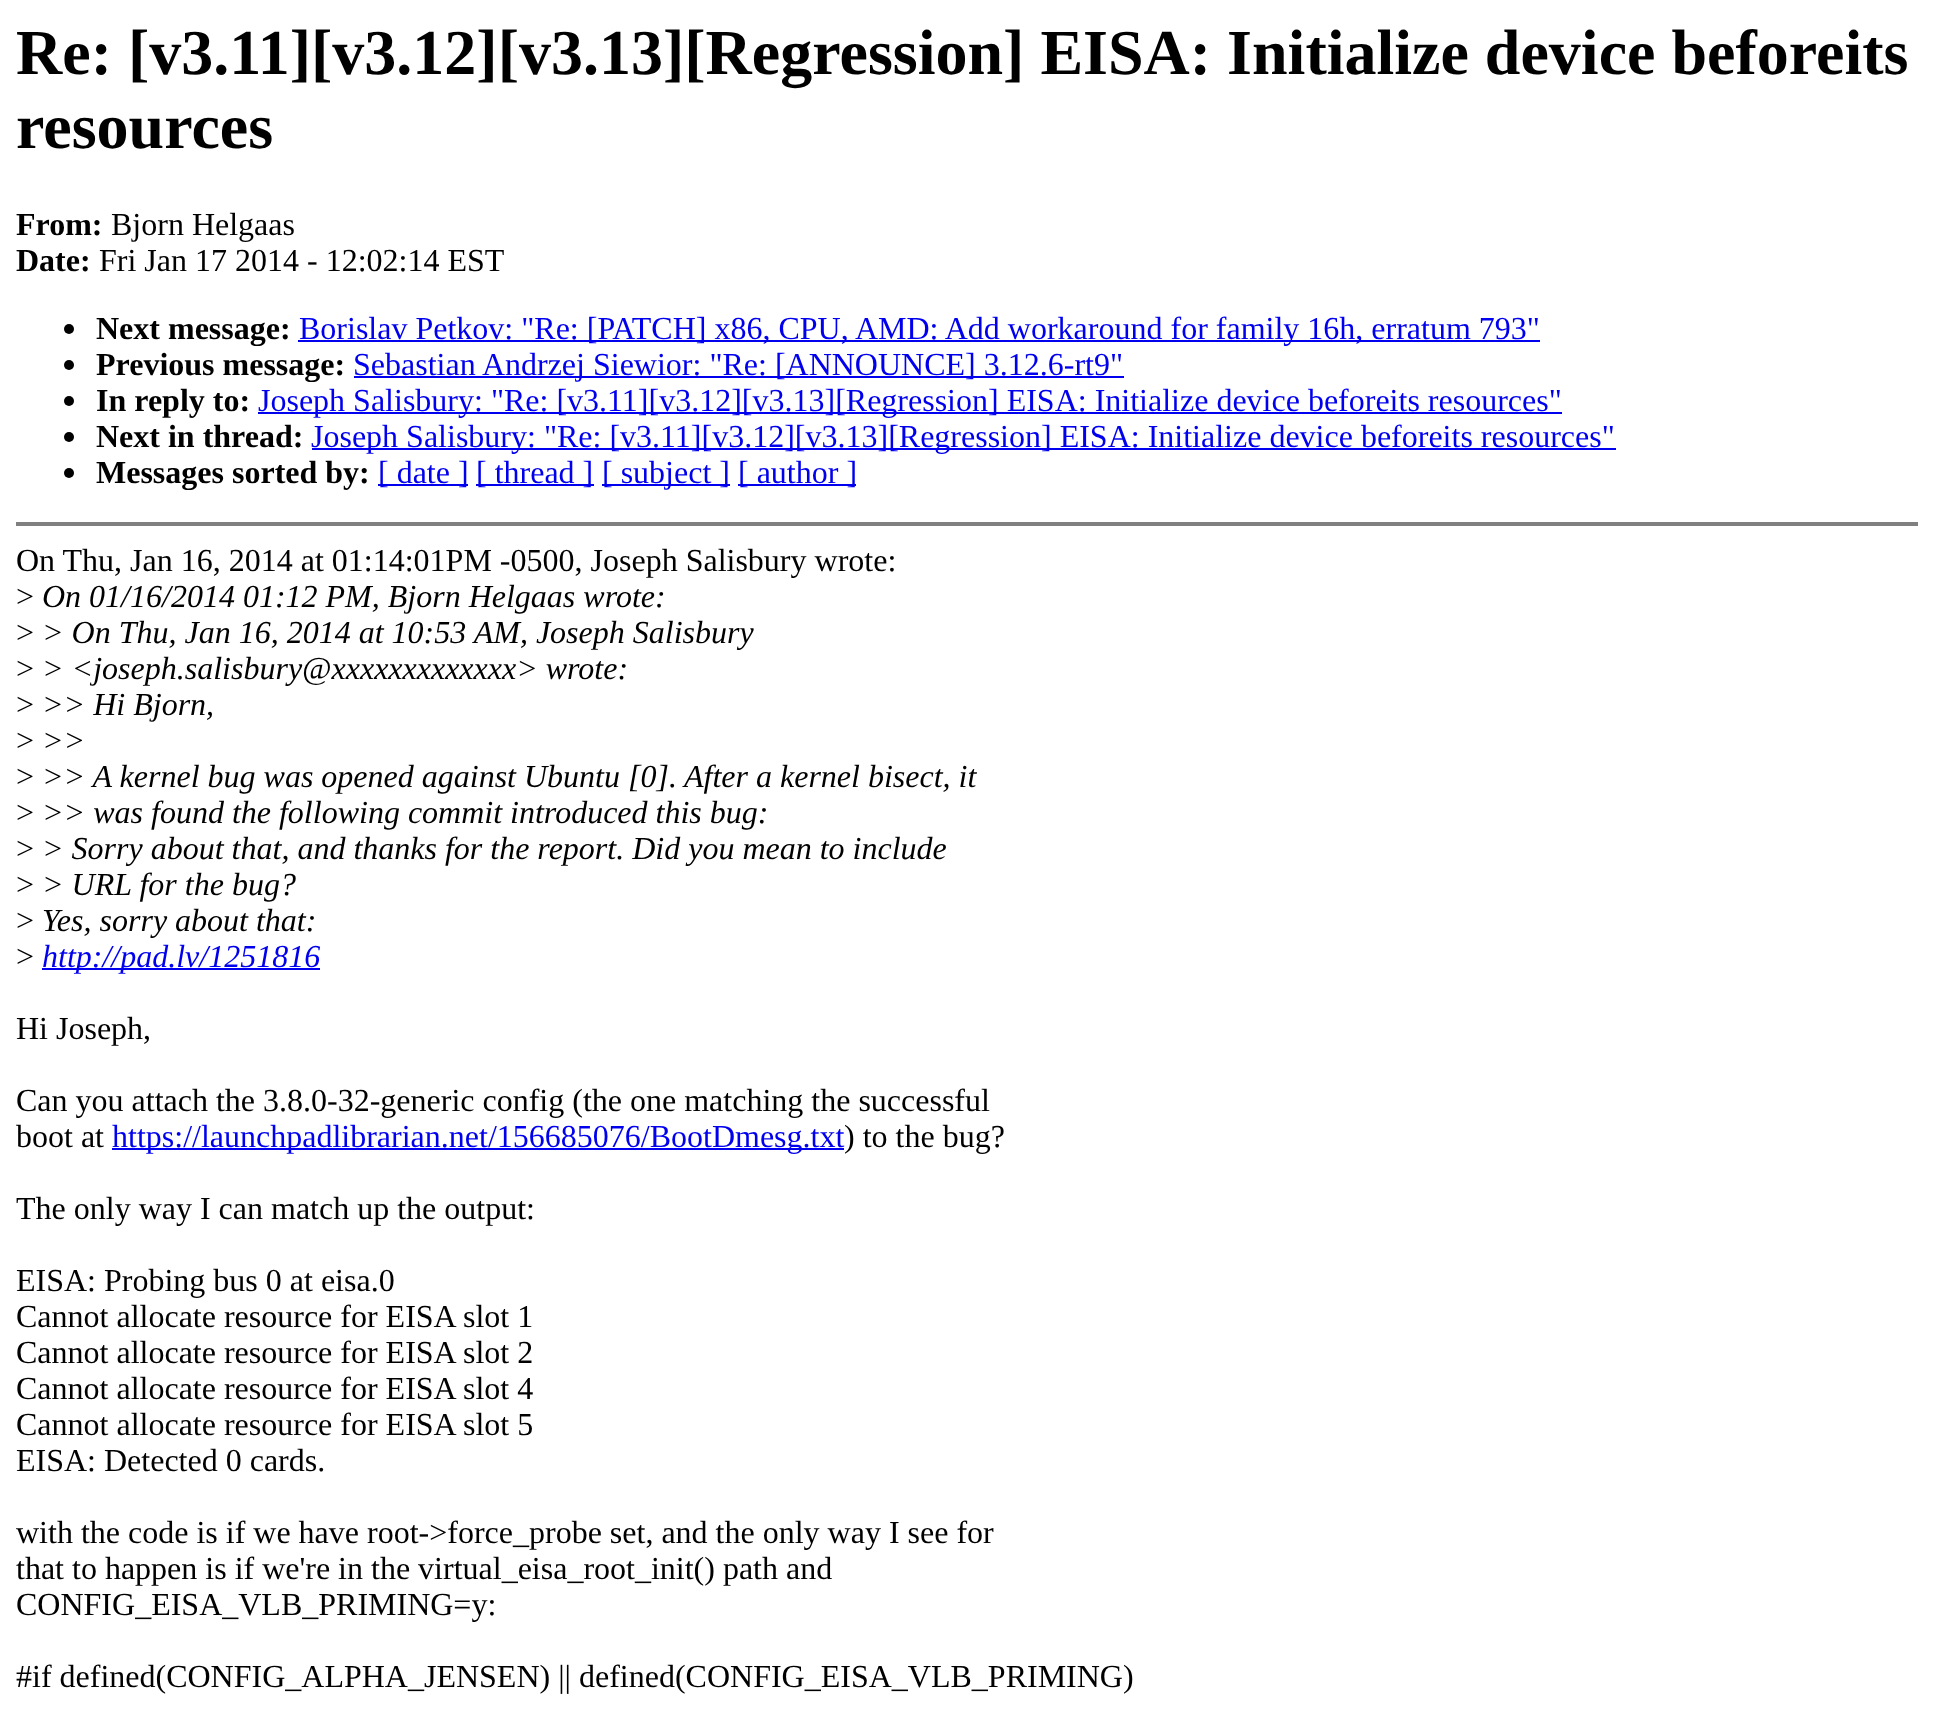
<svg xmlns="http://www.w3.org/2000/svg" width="1933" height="1716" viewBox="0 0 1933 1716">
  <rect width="100%" height="100%" fill="rgb(255,255,255)"/>
  <g font-family="Liberation Serif" font-size="64" font-weight="bold" fill="rgb(0,0,0)">
    <text>
      <tspan x="16" y="74">Re: [v3.11][v3.12][v3.13][Regression] EISA: Initialize device beforeits</tspan>
      <tspan x="16" y="148">resources</tspan>
    </text>
  </g>
  <text x="16" y="235" font-family="Liberation Serif" font-size="32" font-weight="bold" fill="rgb(0,0,0)">From:</text>
  <text x="111" y="235" font-family="Liberation Serif" font-size="32" fill="rgb(0,0,0)">Bjorn Helgaas</text>
  <text x="16" y="271" font-family="Liberation Serif" font-size="32" font-weight="bold" fill="rgb(0,0,0)">Date:</text>
  <text x="99" y="271" font-family="Liberation Serif" font-size="32" fill="rgb(0,0,0)">Fri Jan 17 2014 - 12:02:14 EST</text>
  <circle cx="69" cy="329" r="5" fill="rgb(0,0,0)"/>
  <text x="96" y="339" font-family="Liberation Serif" font-size="32" font-weight="bold" fill="rgb(0,0,0)">Next message:</text>
  <rect x="298" y="340" width="1242" height="2" fill="rgb(0,0,238)"/>
  <text x="299" y="339" font-family="Liberation Serif" font-size="32" fill="rgb(0,0,238)">Borislav Petkov: "Re: [PATCH] x86, CPU, AMD: Add workaround for family 16h, erratum 793"</text>
  <circle cx="69" cy="365" r="5" fill="rgb(0,0,0)"/>
  <text x="96" y="375" font-family="Liberation Serif" font-size="32" font-weight="bold" fill="rgb(0,0,0)">Previous message:</text>
  <rect x="354" y="376" width="770" height="2" fill="rgb(0,0,238)"/>
  <text x="353" y="375" font-family="Liberation Serif" font-size="32" fill="rgb(0,0,238)">Sebastian Andrzej Siewior: "Re: [ANNOUNCE] 3.12.6-rt9"</text>
  <circle cx="69" cy="401" r="5" fill="rgb(0,0,0)"/>
  <text x="96" y="411" font-family="Liberation Serif" font-size="32" font-weight="bold" fill="rgb(0,0,0)">In reply to:</text>
  <rect x="258" y="412" width="1304" height="2" fill="rgb(0,0,238)"/>
  <text x="258" y="411" font-family="Liberation Serif" font-size="32" fill="rgb(0,0,238)">Joseph Salisbury: "Re: [v3.11][v3.12][v3.13][Regression] EISA: Initialize device beforeits resources"</text>
  <circle cx="69" cy="437" r="5" fill="rgb(0,0,0)"/>
  <text x="96" y="447" font-family="Liberation Serif" font-size="32" font-weight="bold" fill="rgb(0,0,0)">Next in thread:</text>
  <rect x="312" y="448" width="1304" height="2" fill="rgb(0,0,238)"/>
  <text x="311" y="447" font-family="Liberation Serif" font-size="32" fill="rgb(0,0,238)">Joseph Salisbury: "Re: [v3.11][v3.12][v3.13][Regression] EISA: Initialize device beforeits resources"</text>
  <circle cx="69" cy="473" r="5" fill="rgb(0,0,0)"/>
  <text x="96" y="483" font-family="Liberation Serif" font-size="32" font-weight="bold" fill="rgb(0,0,0)">Messages sorted by:</text>
  <rect x="378" y="484" width="90" height="2" fill="rgb(0,0,238)"/>
  <text x="378" y="483" font-family="Liberation Serif" font-size="32" fill="rgb(0,0,238)">[ date ]</text>
  <rect x="476" y="484" width="118" height="2" fill="rgb(0,0,238)"/>
  <text x="476" y="483" font-family="Liberation Serif" font-size="32" fill="rgb(0,0,238)">[ thread ]</text>
  <rect x="602" y="484" width="128" height="2" fill="rgb(0,0,238)"/>
  <text x="602" y="483" font-family="Liberation Serif" font-size="32" fill="rgb(0,0,238)">[ subject ]</text>
  <rect x="738" y="484" width="118" height="2" fill="rgb(0,0,238)"/>
  <text x="738" y="483" font-family="Liberation Serif" font-size="32" fill="rgb(0,0,238)">[ author ]</text>
  <rect x="16" y="522" width="1902" height="4" fill="rgb(128,128,128)"/>
  <g font-family="Liberation Serif" font-size="32" fill="rgb(0,0,0)">
    <text>
      <tspan x="16" y="571">On Thu, Jan 16, 2014 at 01:14:01PM -0500, Joseph Salisbury wrote:</tspan>
      <tspan x="16" y="607">&gt;</tspan>
    </text>
  </g>
  <text x="42" y="607" font-family="Liberation Serif" font-size="32" font-style="italic" fill="rgb(0,0,0)">On 01/16/2014 01:12 PM, Bjorn Helgaas wrote:</text>
  <text x="16" y="643" font-family="Liberation Serif" font-size="32" fill="rgb(0,0,0)">&gt;</text>
  <text x="42" y="643" font-family="Liberation Serif" font-size="32" font-style="italic" fill="rgb(0,0,0)">&gt; On Thu, Jan 16, 2014 at 10:53 AM, Joseph Salisbury</text>
  <text x="16" y="679" font-family="Liberation Serif" font-size="32" fill="rgb(0,0,0)">&gt;</text>
  <text x="42" y="679" font-family="Liberation Serif" font-size="32" font-style="italic" fill="rgb(0,0,0)">&gt; &lt;joseph.salisbury@xxxxxxxxxxxxx&gt; wrote:</text>
  <text x="16" y="715" font-family="Liberation Serif" font-size="32" fill="rgb(0,0,0)">&gt;</text>
  <text x="42" y="715" font-family="Liberation Serif" font-size="32" font-style="italic" fill="rgb(0,0,0)">&gt;&gt; Hi Bjorn,</text>
  <text x="16" y="751" font-family="Liberation Serif" font-size="32" fill="rgb(0,0,0)">&gt;</text>
  <text x="42" y="751" font-family="Liberation Serif" font-size="32" font-style="italic" fill="rgb(0,0,0)">&gt;&gt;</text>
  <text x="16" y="787" font-family="Liberation Serif" font-size="32" fill="rgb(0,0,0)">&gt;</text>
  <g font-family="Liberation Serif" font-size="32" font-style="italic" fill="rgb(0,0,0)">
    <text x="42" y="787">&gt;&gt; A kernel bug was opened against Ubuntu [0].</text>
    <text x="684" y="787">After a kernel bisect, it</text>
  </g>
  <text x="16" y="823" font-family="Liberation Serif" font-size="32" fill="rgb(0,0,0)">&gt;</text>
  <text x="42" y="823" font-family="Liberation Serif" font-size="32" font-style="italic" fill="rgb(0,0,0)">&gt;&gt; was found the following commit introduced this bug:</text>
  <text x="16" y="859" font-family="Liberation Serif" font-size="32" fill="rgb(0,0,0)">&gt;</text>
  <text x="42" y="859" font-family="Liberation Serif" font-size="32" font-style="italic" fill="rgb(0,0,0)">&gt; Sorry about that, and thanks for the report. Did you mean to include</text>
  <text x="16" y="895" font-family="Liberation Serif" font-size="32" fill="rgb(0,0,0)">&gt;</text>
  <text x="42" y="895" font-family="Liberation Serif" font-size="32" font-style="italic" fill="rgb(0,0,0)">&gt; URL for the bug?</text>
  <text x="16" y="931" font-family="Liberation Serif" font-size="32" fill="rgb(0,0,0)">&gt;</text>
  <text x="42" y="931" font-family="Liberation Serif" font-size="32" font-style="italic" fill="rgb(0,0,0)">Yes, sorry about that:</text>
  <text x="16" y="967" font-family="Liberation Serif" font-size="32" fill="rgb(0,0,0)">&gt;</text>
  <rect x="42" y="968" width="278" height="2" fill="rgb(0,0,238)"/>
  <text x="42" y="967" font-family="Liberation Serif" font-size="32" font-style="italic" fill="rgb(0,0,238)">http://pad.lv/1251816</text>
  <g font-family="Liberation Serif" font-size="32" fill="rgb(0,0,0)">
    <text x="16" y="1039">Hi Joseph,</text>
    <text>
      <tspan x="16" y="1111">Can you attach the 3.8.0-32-generic config (the one matching the successful</tspan>
      <tspan x="16" y="1147">boot at</tspan>
    </text>
  </g>
  <rect x="112" y="1148" width="732" height="2" fill="rgb(0,0,238)"/>
  <text x="112" y="1147" font-family="Liberation Serif" font-size="32" fill="rgb(0,0,238)">https://launchpadlibrarian.net/156685076/BootDmesg.txt</text>
  <g font-family="Liberation Serif" font-size="32" fill="rgb(0,0,0)">
    <text x="844" y="1147">) to the bug?</text>
    <text x="16" y="1219">The only way I can match up the output:</text>
    <text>
      <tspan x="16" y="1291">EISA: Probing bus 0 at eisa.0</tspan>
      <tspan x="16" y="1327">Cannot allocate resource for EISA slot 1</tspan>
      <tspan x="16" y="1363">Cannot allocate resource for EISA slot 2</tspan>
      <tspan x="16" y="1399">Cannot allocate resource for EISA slot 4</tspan>
      <tspan x="16" y="1435">Cannot allocate resource for EISA slot 5</tspan>
      <tspan x="16" y="1471">EISA: Detected 0 cards.</tspan>
    </text>
    <text>
      <tspan x="16" y="1543">with the code is if we have root-&gt;force_probe set, and the only way I see for</tspan>
      <tspan x="16" y="1579">that to happen is if we're in the virtual_eisa_root_init() path and</tspan>
      <tspan x="16" y="1615">CONFIG_EISA_VLB_PRIMING=y:</tspan>
    </text>
    <text x="16" y="1687">#if defined(CONFIG_ALPHA_JENSEN) || defined(CONFIG_EISA_VLB_PRIMING)</text>
  </g>
</svg>
